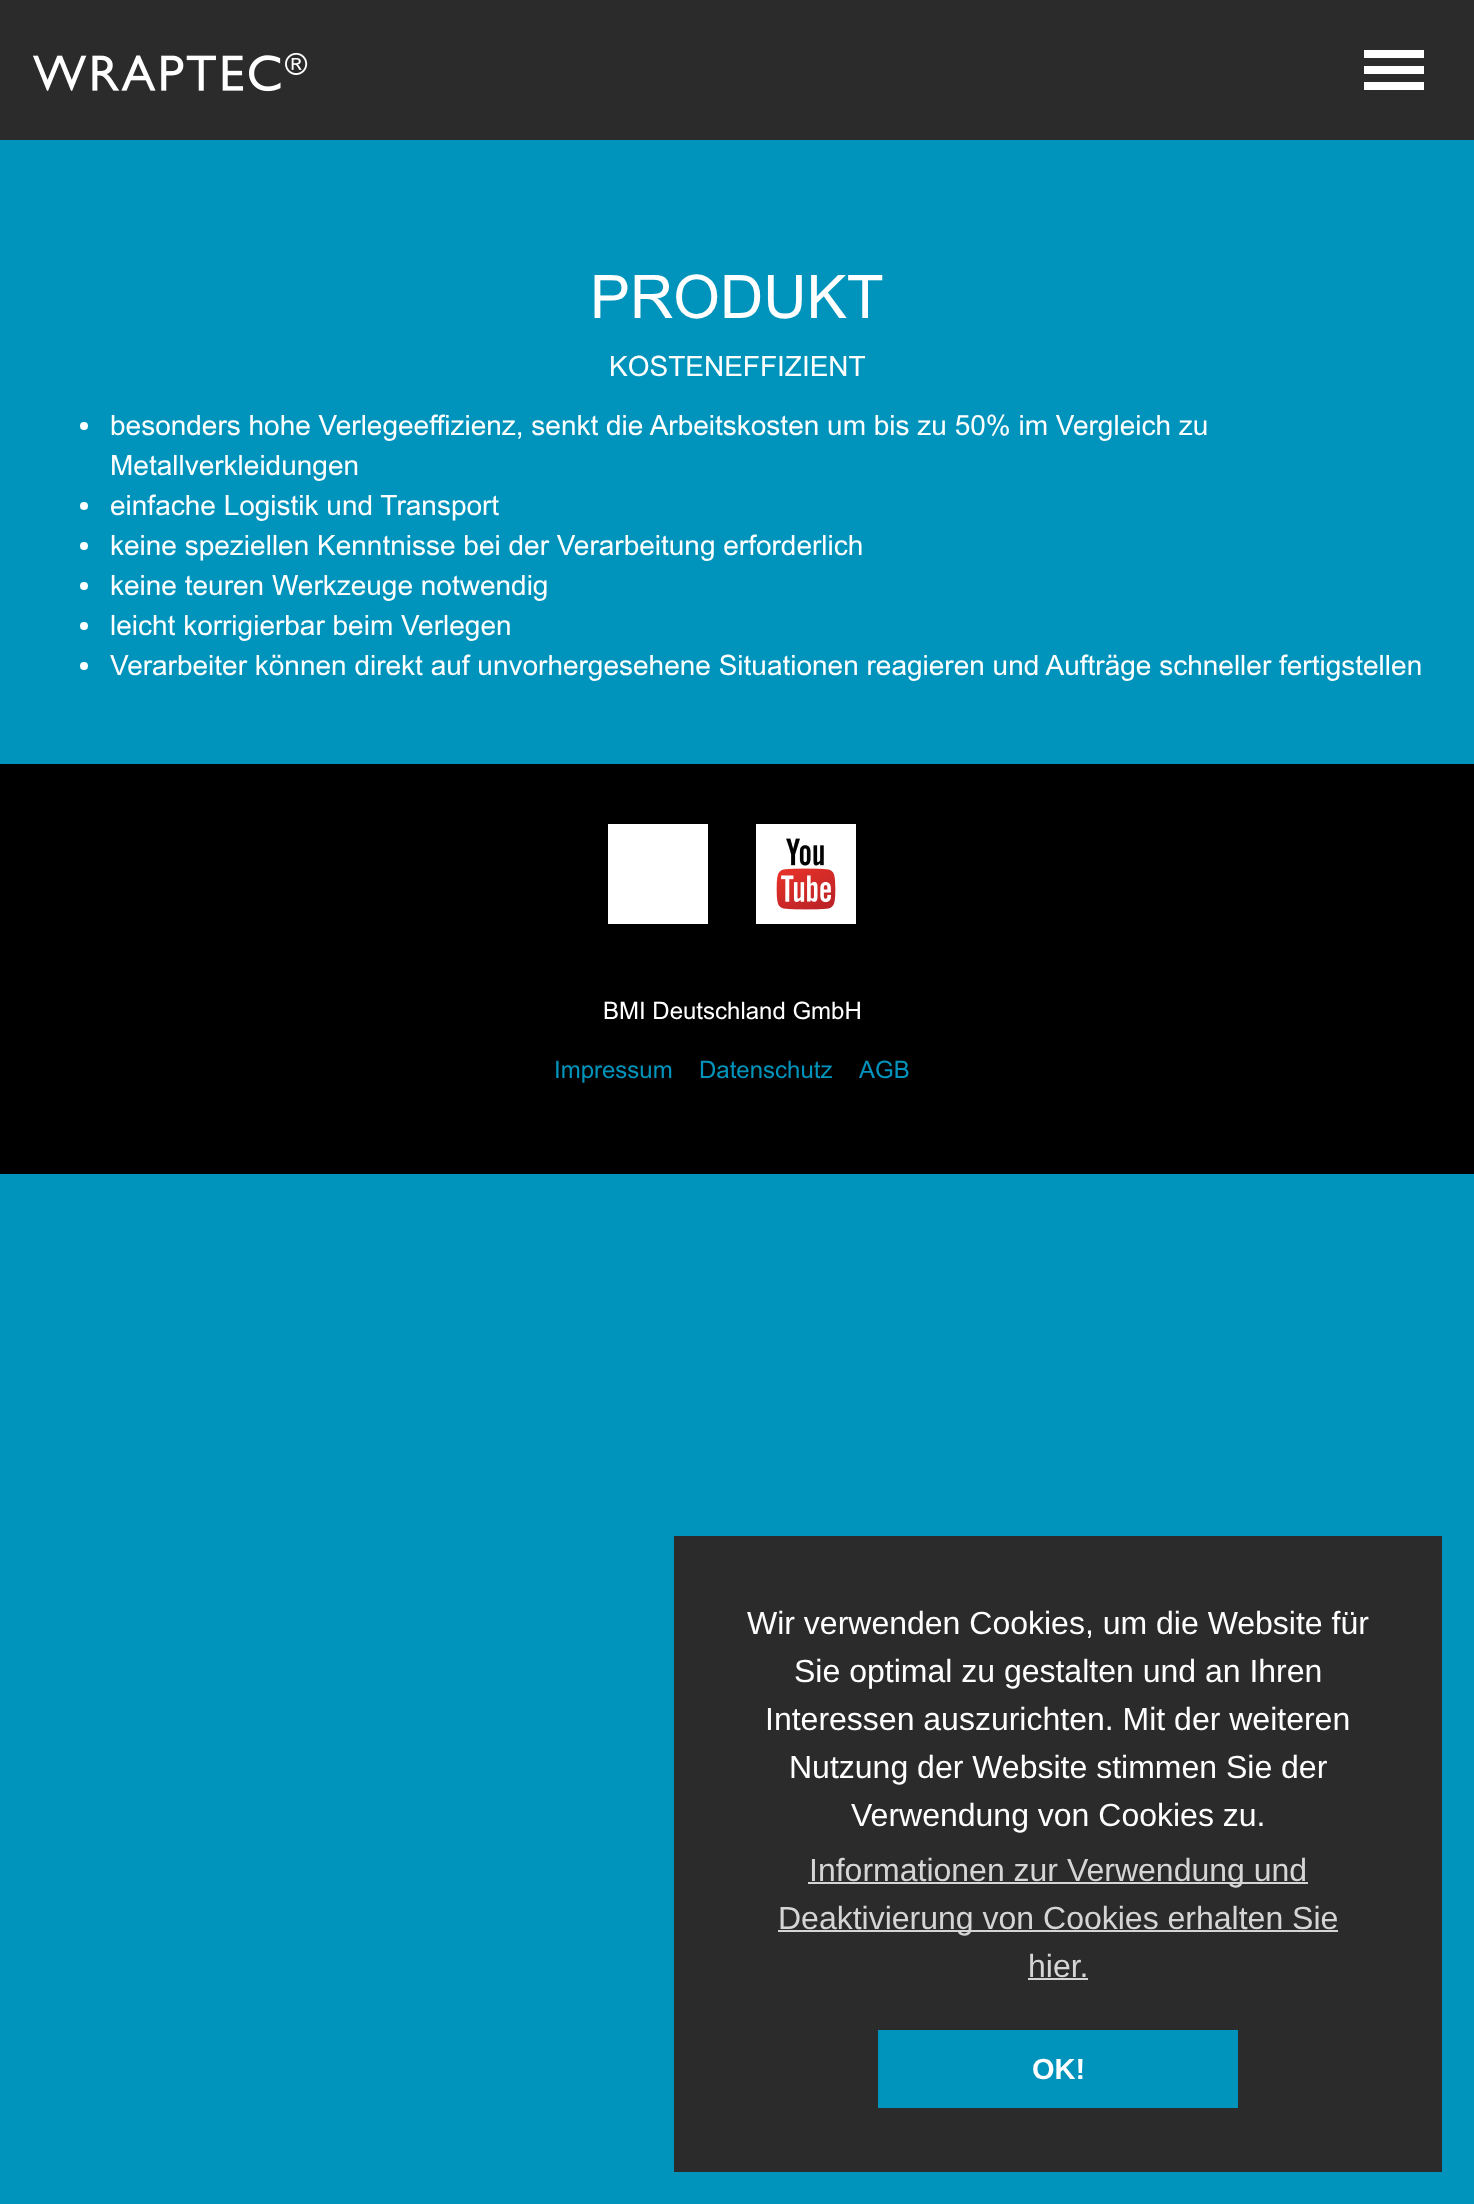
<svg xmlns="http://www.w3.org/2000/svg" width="1474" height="2204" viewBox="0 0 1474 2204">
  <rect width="100%" height="100%" fill="rgb(0,148,188)"/>
  <rect x="0" y="0" width="1474" height="140" fill="rgb(43,43,43)"/>
  <image x="33" y="52" width="275" height="40" href="pic1.png"/>
  <rect x="1364" y="50" width="60" height="8" fill="rgb(255,255,255)"/>
  <rect x="1364" y="66" width="60" height="8" fill="rgb(255,255,255)"/>
  <rect x="1364" y="82" width="60" height="8" fill="rgb(255,255,255)"/>
  <text x="590" y="318" font-family="'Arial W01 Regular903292'" font-size="60" fill="rgb(255,255,255)">PRODUKT</text>
  <text x="609" y="376" font-family="'Arial W01 Regular903292'" font-size="28" fill="rgb(255,255,255)">KOSTENEFFIZIENT</text>
  <circle cx="84" cy="426" r="4" fill="rgb(255,255,255)"/>
  <g font-family="'Arial W01 Regular903292'" font-size="28" fill="rgb(255,255,255)">
    <text>
      <tspan x="110" y="435">besonders hohe Verlegeeffizienz, senkt die Arbeitskosten um bis zu 50% im Vergleich zu</tspan>
      <tspan x="110" y="475">Metallverkleidungen</tspan>
    </text>
  </g>
  <circle cx="84" cy="506" r="4" fill="rgb(255,255,255)"/>
  <text x="110" y="515" font-family="'Arial W01 Regular903292'" font-size="28" fill="rgb(255,255,255)">einfache Logistik und Transport</text>
  <circle cx="84" cy="546" r="4" fill="rgb(255,255,255)"/>
  <text x="110" y="555" font-family="'Arial W01 Regular903292'" font-size="28" fill="rgb(255,255,255)">keine speziellen Kenntnisse bei der Verarbeitung erforderlich</text>
  <circle cx="84" cy="586" r="4" fill="rgb(255,255,255)"/>
  <text x="110" y="595" font-family="'Arial W01 Regular903292'" font-size="28" fill="rgb(255,255,255)">keine teuren Werkzeuge notwendig</text>
  <circle cx="84" cy="626" r="4" fill="rgb(255,255,255)"/>
  <text x="110" y="635" font-family="'Arial W01 Regular903292'" font-size="28" fill="rgb(255,255,255)">leicht korrigierbar beim Verlegen</text>
  <circle cx="84" cy="666" r="4" fill="rgb(255,255,255)"/>
  <text x="110" y="675" font-family="'Arial W01 Regular903292'" font-size="28" fill="rgb(255,255,255)">Verarbeiter können direkt auf unvorhergesehene Situationen reagieren und Aufträge schneller fertigstellen</text>
  <rect x="0" y="764" width="1474" height="410" fill="rgb(0,0,0)"/>
  <rect x="608" y="824" width="100" height="100" fill="rgb(255,255,255)"/>
  <rect x="756" y="824" width="100" height="100" fill="rgb(255,255,255)"/>
  <image x="776" y="838" width="60" height="72" href="pic2.png"/>
  <text x="603" y="1019" font-family="'Arial W01 Regular903292'" font-size="24" fill="rgb(255,255,255)">BMI Deutschland GmbH</text>
  <g font-family="'Arial W01 Regular903292'" font-size="24" fill="rgb(0,148,188)">
    <text x="554" y="1078">Impressum</text>
    <text x="699" y="1078">Datenschutz</text>
    <text x="859" y="1078">AGB</text>
  </g>
  <rect x="674" y="1536" width="768" height="636" fill="rgb(43,43,43)"/>
  <g font-family="Liberation Sans" font-size="32" fill="rgb(255,255,255)">
    <text x="747" y="1634">Wir verwenden Cookies, um die Website für</text>
    <text x="794" y="1682">Sie optimal zu gestalten und an Ihren</text>
    <text x="765" y="1730">Interessen auszurichten. Mit der weiteren</text>
    <text x="789" y="1778">Nutzung der Website stimmen Sie der</text>
    <text x="851" y="1826">Verwendung von Cookies zu.</text>
  </g>
  <rect x="808" y="1882" width="500" height="2" fill="rgb(213,213,213)"/>
  <text x="809" y="1881" font-family="Liberation Sans" font-size="32" fill="rgb(213,213,213)">Informationen zur Verwendung und</text>
  <rect x="778" y="1930" width="560" height="2" fill="rgb(213,213,213)"/>
  <g font-family="Liberation Sans" font-size="32" fill="rgb(213,213,213)">
    <text x="778" y="1929">Deaktivierung von Cookies erhalten Sie</text>
    <text x="1028" y="1977">hier.</text>
  </g>
  <rect x="1028" y="1978" width="60" height="2" fill="rgb(213,213,213)"/>
  <rect x="878" y="2030" width="360" height="78" fill="rgb(0,148,188)"/>
  <text x="1032" y="2079" font-family="Liberation Sans" font-size="29" font-weight="bold" fill="rgb(255,255,255)">OK!</text>
</svg>
